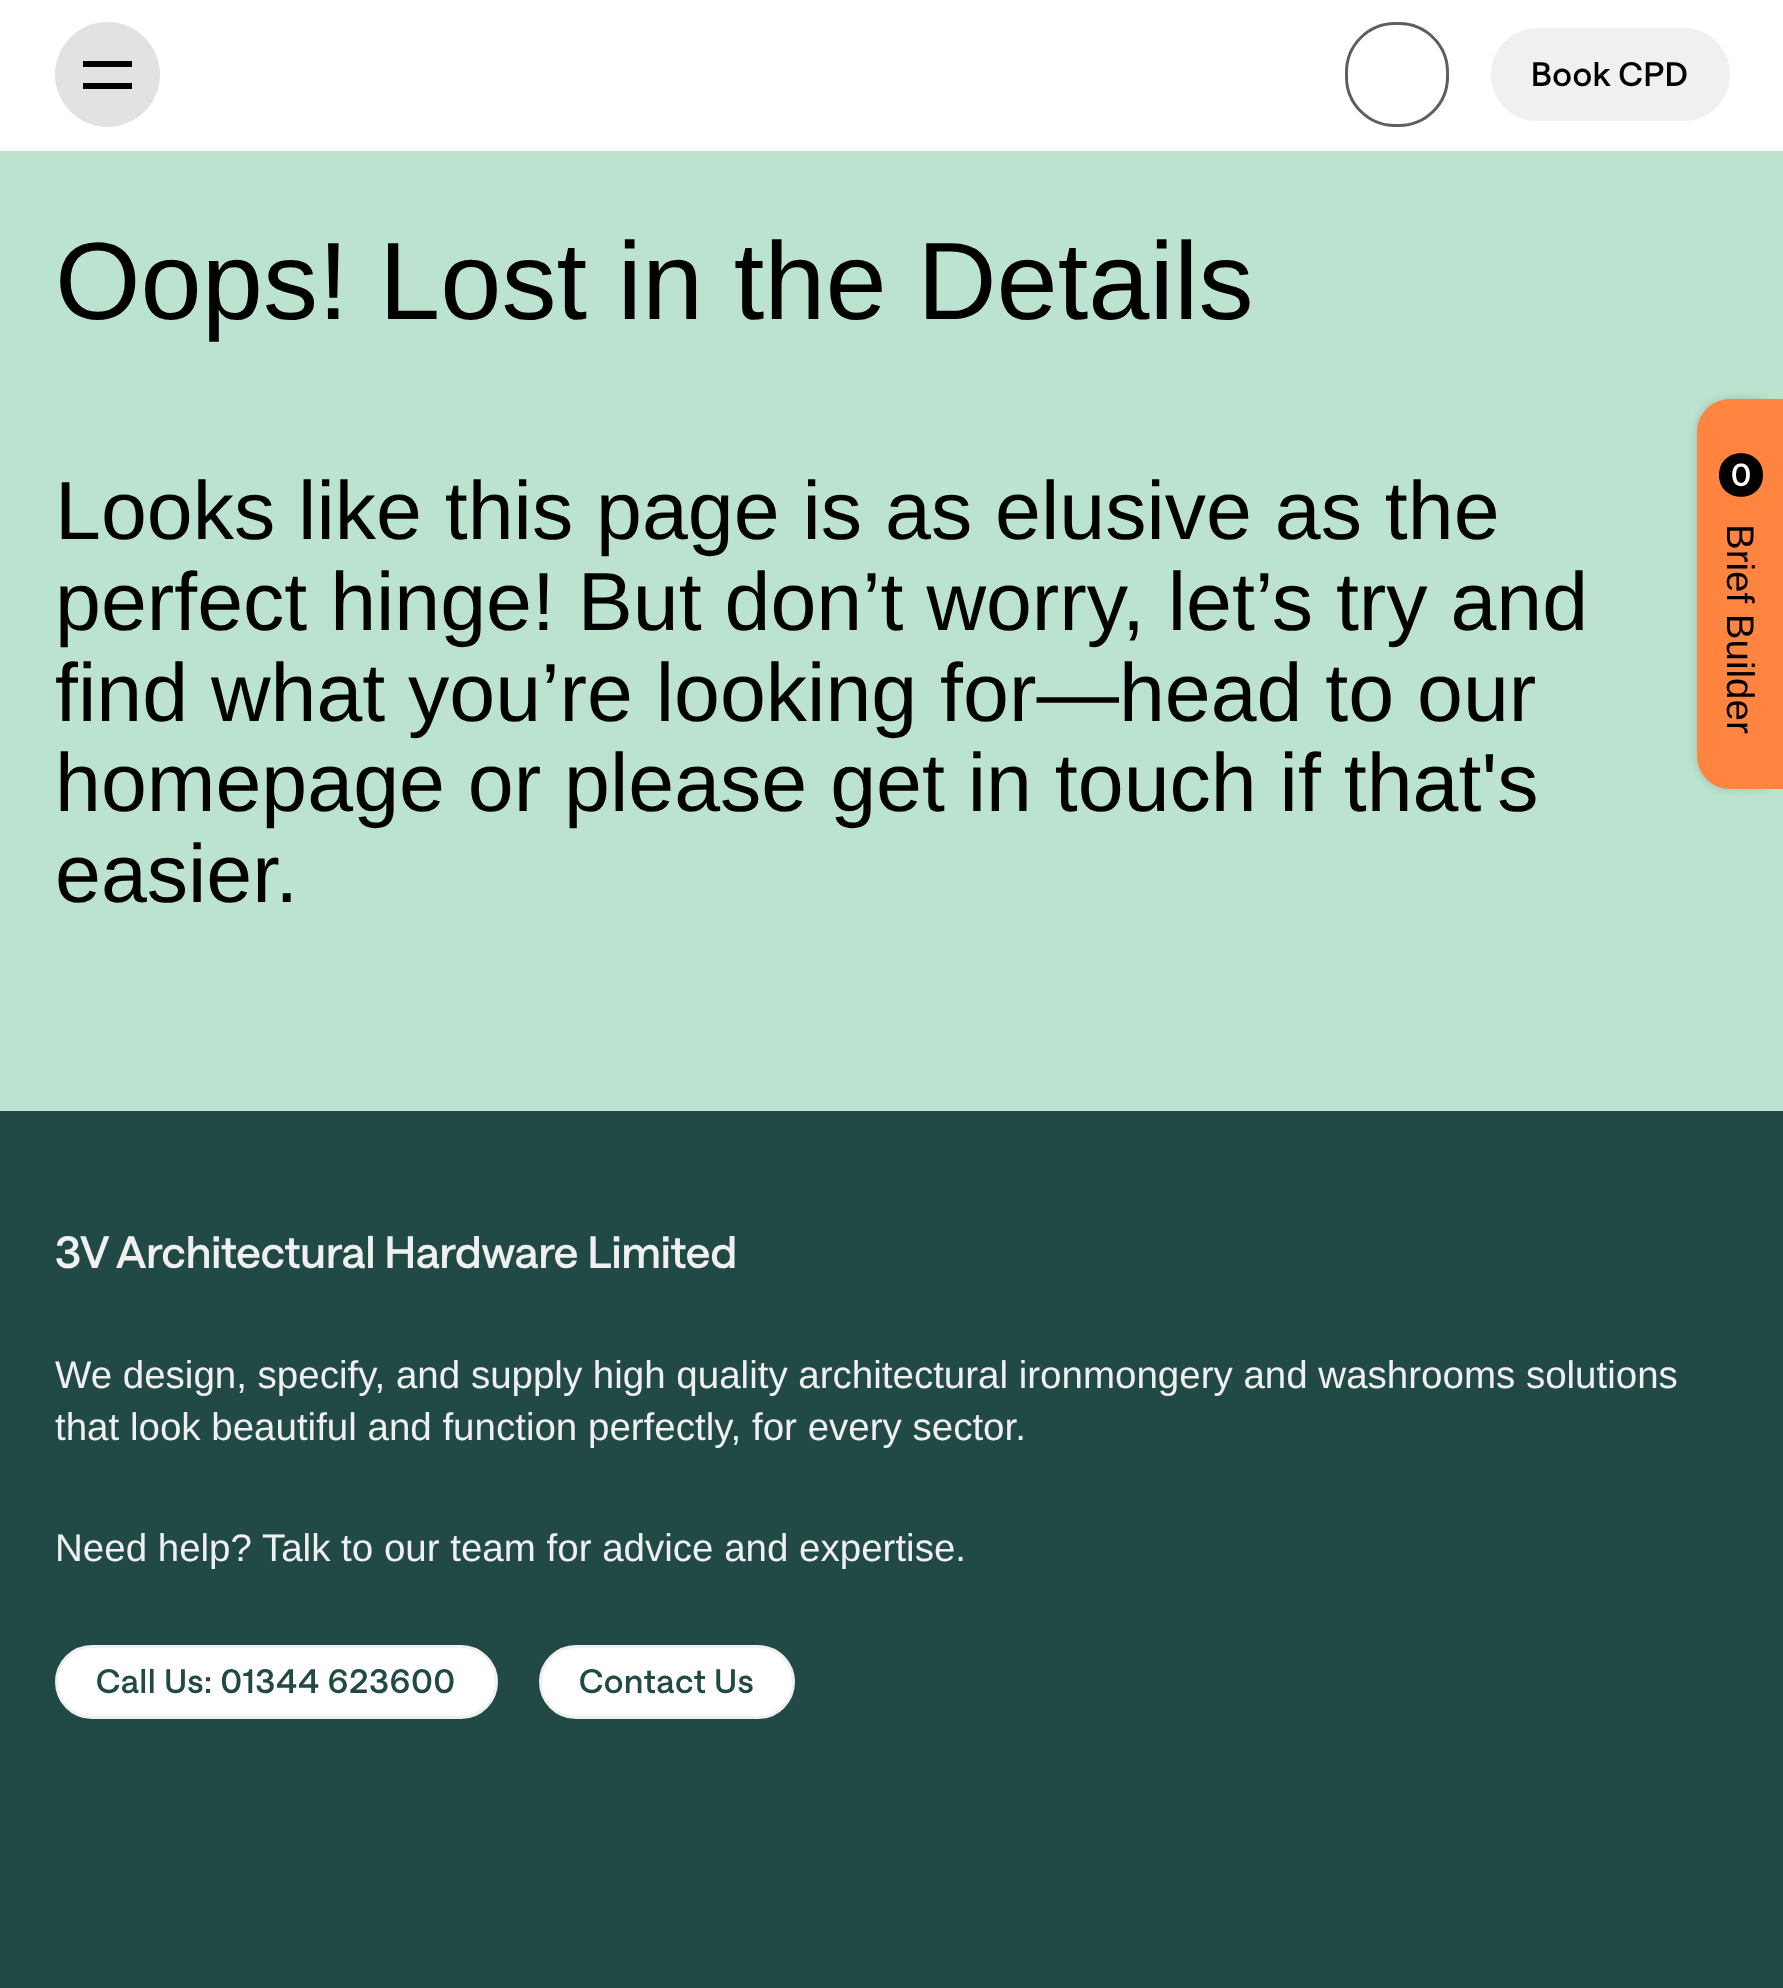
<svg xmlns="http://www.w3.org/2000/svg" width="1783" height="1988" viewBox="0 0 1783 1988">
  <rect width="100%" height="100%" fill="rgb(255,255,255)"/>
  <rect x="0" y="151" width="1783" height="960" fill="rgb(188,227,208)"/>
  <text x="55" y="319" font-family="Liberation Sans" font-size="110" fill="rgb(0,0,0)">Oops! Lost in the Details</text>
  <g font-family="Liberation Sans" font-size="82.5" fill="rgb(0,0,0)">
    <text>
      <tspan x="55" y="539">Looks like this page is as elusive as the</tspan>
      <tspan x="55" y="630">perfect hinge! But don’t worry, let’s try and</tspan>
      <tspan x="55" y="721">find what you’re looking for—head to our</tspan>
      <tspan x="55" y="811">homepage or please get in touch if that's</tspan>
      <tspan x="55" y="902">easier.</tspan>
    </text>
  </g>
  <circle cx="107.5" cy="74.5" r="52.5" fill="rgb(226,226,226)"/>
  <rect x="83" y="61" width="49" height="6" fill="rgb(0,0,0)"/>
  <rect x="83" y="83" width="49" height="6" fill="rgb(0,0,0)"/>
  <rect x="1346.5" y="23.5" width="101" height="102" rx="48.5" fill="none" stroke="rgb(94,94,94)" stroke-width="3"/>
  <rect x="1492.5" y="29.5" width="236" height="90" rx="45" fill="rgb(240,240,240)" stroke="rgb(240,240,240)" stroke-width="3"/>
  <text x="1531" y="86" font-family="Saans" font-size="33" font-weight="500" letter-spacing="0.9" fill="rgb(0,0,0)">Book CPD</text>
  <rect x="1697" y="399" width="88" height="390" rx="33" fill="rgba(0,0,0,0.16)" filter="blur(4px)"/>
  <path d="M1730 399H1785V789H1730C1712 789 1697 774 1697 756V432C1697 414 1712 399 1730 399Z" fill="rgb(255,132,63)"/>
  <path d="M1719 475C1719 446 1763 446 1763 475C1763 504 1719 504 1719 475Z" fill="rgb(0,0,0)"/>
  <text x="1731" y="486" font-family="Saans" font-size="31" font-weight="500" fill="rgb(255,255,255)">0</text>
  <text x="1727" y="524" transform="rotate(90 1727 524)" font-family="Liberation Sans" font-size="38.5" fill="rgb(0,0,0)">Brief Builder</text>
  <rect x="0" y="1111" width="1783" height="877" fill="rgb(33,74,70)"/>
  <text x="55" y="1268" font-family="Saans" font-size="44" font-weight="500" fill="rgb(240,240,240)">3V Architectural Hardware Limited</text>
  <g font-family="Liberation Sans" font-size="38.5" fill="rgb(240,240,240)">
    <text>
      <tspan x="55" y="1388">We design, specify, and supply high quality architectural ironmongery and washrooms solutions</tspan>
      <tspan x="55" y="1440">that look beautiful and function perfectly, for every sector.</tspan>
    </text>
    <text x="55" y="1561">Need help? Talk to our team for advice and expertise.</text>
  </g>
  <rect x="56.5" y="1646.5" width="440" height="71" rx="35.5" fill="rgb(255,255,255)" stroke="rgb(240,240,240)" stroke-width="3"/>
  <text x="96" y="1693" font-family="Saans" font-size="33" font-weight="500" letter-spacing="0.9" fill="rgb(33,74,70)">Call Us: 01344 623600</text>
  <rect x="540.5" y="1646.5" width="253" height="71" rx="35.5" fill="rgb(255,255,255)" stroke="rgb(240,240,240)" stroke-width="3"/>
  <text x="579" y="1693" font-family="Saans" font-size="33" font-weight="500" letter-spacing="0.9" fill="rgb(33,74,70)">Contact Us</text>
</svg>
